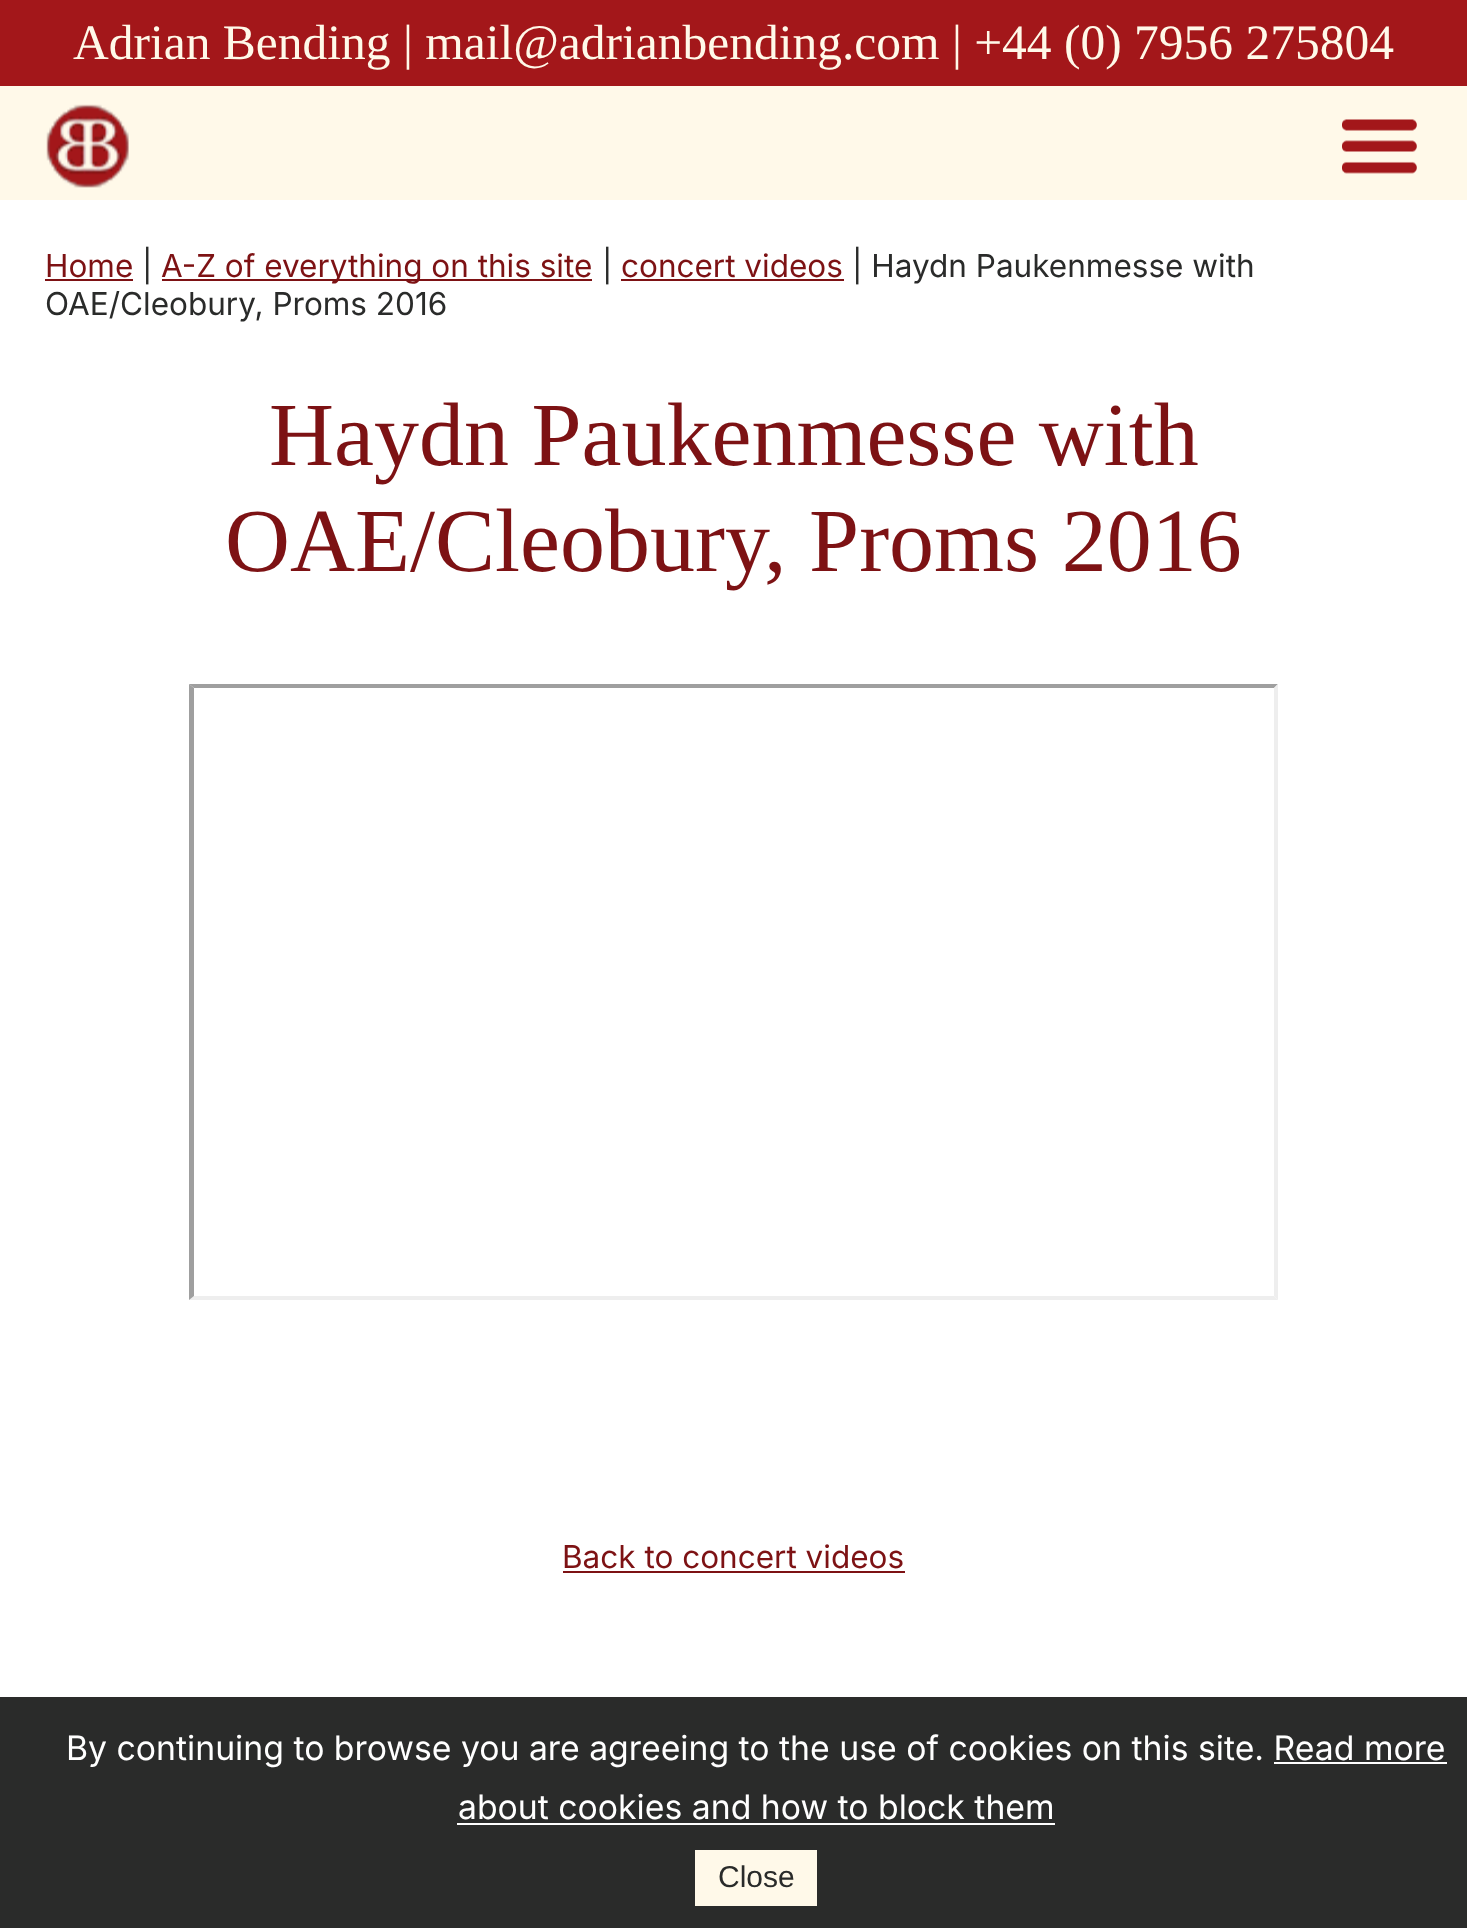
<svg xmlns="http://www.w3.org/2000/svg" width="1467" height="1928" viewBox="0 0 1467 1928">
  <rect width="100%" height="100%" fill="rgb(255,255,255)"/>
  <rect x="0" y="0" width="1467" height="86" fill="rgb(163,23,26)"/>
  <text x="73" y="59" font-family="Tinos" font-size="49.5" fill="rgb(255,249,233)">Adrian Bending | mail@adrianbending.com | +44 (0) 7956 275804</text>
  <rect x="0" y="86" width="1467" height="114" fill="rgb(255,249,233)"/>
  <image x="46" y="104" width="83" height="84" href="pic1.png"/>
  <image x="1342" y="119" width="75" height="55" href="pic2.png"/>
  <text x="45" y="277" font-family="Inter" font-size="31.5" fill="rgb(125,18,20)">Home</text>
  <rect x="45" y="279" width="88" height="2" fill="rgb(125,18,20)"/>
  <text x="142" y="277" font-family="Inter" font-size="31.5" fill="rgb(42,43,42)">|</text>
  <rect x="162" y="279" width="430" height="2" fill="rgb(125,18,20)"/>
  <text x="161" y="277" font-family="Inter" font-size="31.5" fill="rgb(125,18,20)">A-Z of everything on this site</text>
  <text x="602" y="277" font-family="Inter" font-size="31.5" fill="rgb(42,43,42)">|</text>
  <text x="621" y="277" font-family="Inter" font-size="31.5" fill="rgb(125,18,20)">concert videos</text>
  <rect x="621" y="279" width="223" height="2" fill="rgb(125,18,20)"/>
  <g font-family="Inter" font-size="31.5" fill="rgb(42,43,42)">
    <text x="852" y="277">| Haydn Paukenmesse with</text>
    <text x="45" y="315">OAE/Cleobury, Proms 2016</text>
  </g>
  <g font-family="Tinos" font-size="90" fill="rgb(125,18,20)">
    <text x="269" y="465">Haydn Paukenmesse with</text>
    <text x="225" y="571">OAE/Cleobury, Proms 2016</text>
  </g>
  <path d="M189 684H1278L1274 688H194Z" fill="rgb(159,159,159)"/>
  <path d="M1278 684V1300L1274 1296V688Z" fill="rgb(238,238,238)"/>
  <path d="M1278 1300H189L194 1296H1274Z" fill="rgb(238,238,238)"/>
  <path d="M189 1300V684L194 688V1296Z" fill="rgb(159,159,159)"/>
  <text x="562" y="1568" font-family="Inter" font-size="31.5" fill="rgb(125,18,20)">Back to concert videos</text>
  <rect x="563" y="1571" width="342" height="2" fill="rgb(125,18,20)"/>
  <rect x="0" y="1697" width="1467" height="231" fill="rgb(42,43,42)"/>
  <g font-family="Inter" font-size="33.75" fill="rgb(255,255,255)">
    <text x="66" y="1760">By continuing to browse you are agreeing to the use of cookies on this site. Read more</text>
    <text x="458" y="1819">about cookies and how to block them</text>
  </g>
  <rect x="1274" y="1762" width="173" height="2" fill="rgb(255,255,255)"/>
  <rect x="457" y="1823" width="598" height="2" fill="rgb(255,255,255)"/>
  <rect x="695" y="1850" width="122" height="56" fill="rgb(255,249,233)"/>
  <text x="718" y="1887" font-family="Liberation Sans" font-size="30" fill="rgb(42,43,42)">Close</text>
</svg>
